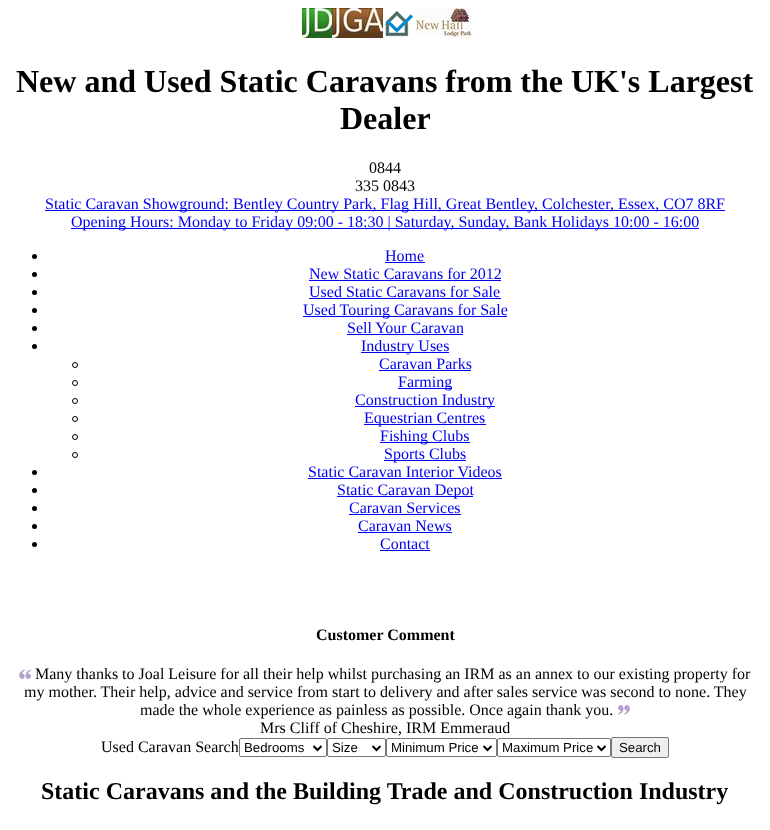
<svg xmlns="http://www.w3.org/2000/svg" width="770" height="830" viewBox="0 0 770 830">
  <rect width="100%" height="100%" fill="rgb(255,255,255)"/>
  <image x="302" y="8" width="30" height="30" href="pic1.png"/>
  <image x="332" y="8" width="51" height="30" href="pic2.png"/>
  <image x="385" y="11" width="28" height="26" href="pic3.png"/>
  <image x="416" y="8" width="56" height="30" href="pic4.png"/>
  <g font-family="Liberation Serif" font-size="32" font-weight="bold" fill="rgb(0,0,0)">
    <text x="16" y="92">New and Used Static Caravans from the UK's Largest</text>
    <text x="340" y="129">Dealer</text>
  </g>
  <g font-family="Liberation Serif" font-size="16" fill="rgb(0,0,0)">
    <text x="369" y="173">0844</text>
    <text x="355" y="191">335 0843</text>
  </g>
  <rect x="45" y="210" width="680" height="1" fill="rgb(0,0,238)"/>
  <text x="45" y="209" font-family="Liberation Serif" font-size="16" fill="rgb(0,0,238)">Static Caravan Showground: Bentley Country Park, Flag Hill, Great Bentley, Colchester, Essex, CO7 8RF</text>
  <rect x="71" y="228" width="628" height="1" fill="rgb(0,0,238)"/>
  <text x="71" y="227" font-family="Liberation Serif" font-size="16" fill="rgb(0,0,238)">Opening Hours: Monday to Friday 09:00 - 18:30 | Saturday, Sunday, Bank Holidays 10:00 - 16:00</text>
  <circle cx="34.5" cy="256.5" r="2.5" fill="rgb(0,0,0)"/>
  <text x="385" y="261" font-family="Liberation Serif" font-size="16" fill="rgb(0,0,238)">Home</text>
  <rect x="385" y="262" width="40" height="1" fill="rgb(0,0,238)"/>
  <circle cx="34.5" cy="274.5" r="2.5" fill="rgb(0,0,0)"/>
  <text x="309" y="279" font-family="Liberation Serif" font-size="16" fill="rgb(0,0,238)">New Static Caravans for 2012</text>
  <rect x="309" y="280" width="192" height="1" fill="rgb(0,0,238)"/>
  <circle cx="34.5" cy="292.5" r="2.5" fill="rgb(0,0,0)"/>
  <text x="309" y="297" font-family="Liberation Serif" font-size="16" fill="rgb(0,0,238)">Used Static Caravans for Sale</text>
  <rect x="309" y="298" width="192" height="1" fill="rgb(0,0,238)"/>
  <circle cx="34.5" cy="310.5" r="2.5" fill="rgb(0,0,0)"/>
  <rect x="303" y="316" width="204" height="1" fill="rgb(0,0,238)"/>
  <text x="303" y="315" font-family="Liberation Serif" font-size="16" fill="rgb(0,0,238)">Used Touring Caravans for Sale</text>
  <circle cx="34.5" cy="328.5" r="2.5" fill="rgb(0,0,0)"/>
  <text x="347" y="333" font-family="Liberation Serif" font-size="16" fill="rgb(0,0,238)">Sell Your Caravan</text>
  <rect x="347" y="334" width="116" height="1" fill="rgb(0,0,238)"/>
  <circle cx="34.5" cy="346.5" r="2.5" fill="rgb(0,0,0)"/>
  <rect x="361" y="352" width="88" height="1" fill="rgb(0,0,238)"/>
  <text x="361" y="351" font-family="Liberation Serif" font-size="16" fill="rgb(0,0,238)">Industry Uses</text>
  <circle cx="75" cy="365" r="2.5" fill="none" stroke="rgb(0,0,0)"/>
  <text x="379" y="369" font-family="Liberation Serif" font-size="16" fill="rgb(0,0,238)">Caravan Parks</text>
  <rect x="379" y="370" width="92" height="1" fill="rgb(0,0,238)"/>
  <circle cx="75" cy="383" r="2.5" fill="none" stroke="rgb(0,0,0)"/>
  <rect x="398" y="388" width="54" height="1" fill="rgb(0,0,238)"/>
  <text x="398" y="387" font-family="Liberation Serif" font-size="16" fill="rgb(0,0,238)">Farming</text>
  <circle cx="75" cy="401" r="2.5" fill="none" stroke="rgb(0,0,0)"/>
  <rect x="355" y="406" width="140" height="1" fill="rgb(0,0,238)"/>
  <text x="355" y="405" font-family="Liberation Serif" font-size="16" fill="rgb(0,0,238)">Construction Industry</text>
  <circle cx="75" cy="419" r="2.5" fill="none" stroke="rgb(0,0,0)"/>
  <rect x="364" y="424" width="122" height="1" fill="rgb(0,0,238)"/>
  <text x="364" y="423" font-family="Liberation Serif" font-size="16" fill="rgb(0,0,238)">Equestrian Centres</text>
  <circle cx="75" cy="437" r="2.5" fill="none" stroke="rgb(0,0,0)"/>
  <rect x="380" y="442" width="90" height="1" fill="rgb(0,0,238)"/>
  <text x="380" y="441" font-family="Liberation Serif" font-size="16" fill="rgb(0,0,238)">Fishing Clubs</text>
  <circle cx="75" cy="455" r="2.5" fill="none" stroke="rgb(0,0,0)"/>
  <rect x="384" y="460" width="82" height="1" fill="rgb(0,0,238)"/>
  <text x="384" y="459" font-family="Liberation Serif" font-size="16" fill="rgb(0,0,238)">Sports Clubs</text>
  <circle cx="34.5" cy="472.5" r="2.5" fill="rgb(0,0,0)"/>
  <text x="308" y="477" font-family="Liberation Serif" font-size="16" fill="rgb(0,0,238)">Static Caravan Interior Videos</text>
  <rect x="308" y="478" width="194" height="1" fill="rgb(0,0,238)"/>
  <circle cx="34.5" cy="490.5" r="2.5" fill="rgb(0,0,0)"/>
  <rect x="337" y="496" width="136" height="1" fill="rgb(0,0,238)"/>
  <text x="337" y="495" font-family="Liberation Serif" font-size="16" fill="rgb(0,0,238)">Static Caravan Depot</text>
  <circle cx="34.5" cy="508.5" r="2.5" fill="rgb(0,0,0)"/>
  <text x="349" y="513" font-family="Liberation Serif" font-size="16" fill="rgb(0,0,238)">Caravan Services</text>
  <rect x="349" y="514" width="112" height="1" fill="rgb(0,0,238)"/>
  <circle cx="34.5" cy="526.5" r="2.5" fill="rgb(0,0,0)"/>
  <text x="358" y="531" font-family="Liberation Serif" font-size="16" fill="rgb(0,0,238)">Caravan News</text>
  <rect x="358" y="532" width="94" height="1" fill="rgb(0,0,238)"/>
  <circle cx="34.5" cy="544.5" r="2.5" fill="rgb(0,0,0)"/>
  <text x="380" y="549" font-family="Liberation Serif" font-size="16" fill="rgb(0,0,238)">Contact</text>
  <rect x="380" y="550" width="50" height="1" fill="rgb(0,0,238)"/>
  <text x="316" y="640" font-family="Liberation Serif" font-size="16" font-weight="bold" fill="rgb(0,0,0)">Customer Comment</text>
  <image x="19" y="669" width="12" height="10" href="pic5.png"/>
  <g font-family="Liberation Serif" font-size="16" fill="rgb(0,0,0)">
    <text x="35" y="679">Many thanks to Joal Leisure for all their help whilst purchasing an IRM as an annex to our existing property for</text>
    <text x="24" y="697">my mother. Their help, advice and service from start to delivery and after sales service was second to none. They</text>
    <text x="140" y="715">made the whole experience as painless as possible. Once again thank you.</text>
  </g>
  <image x="618" y="705" width="12" height="10" href="pic6.png"/>
  <g font-family="Liberation Serif" font-size="16" fill="rgb(0,0,0)">
    <text x="260" y="733">Mrs Cliff of Cheshire, IRM Emmeraud</text>
    <text x="101" y="752">Used Caravan Search</text>
  </g>
  <rect x="239.5" y="738.5" width="87" height="18" rx="1.5" fill="none" stroke="rgb(118,118,118)"/>
  <path d="M313.5 746L317.5 750L321.5 746" fill="none" stroke="rgb(0,0,0)" stroke-width="2"/>
  <text x="244" y="752" font-family="Liberation Sans" font-size="13.25" fill="rgb(0,0,0)">Bedrooms</text>
  <rect x="327.5" y="738.5" width="58" height="18" rx="1.5" fill="none" stroke="rgb(118,118,118)"/>
  <path d="M372.5 746L376.5 750L380.5 746" fill="none" stroke="rgb(0,0,0)" stroke-width="2"/>
  <text x="332" y="752" font-family="Liberation Sans" font-size="13.25" fill="rgb(0,0,0)">Size</text>
  <rect x="386.5" y="738.5" width="110" height="18" rx="1.5" fill="none" stroke="rgb(118,118,118)"/>
  <path d="M483.5 746L487.5 750L491.5 746" fill="none" stroke="rgb(0,0,0)" stroke-width="2"/>
  <text x="391" y="752" font-family="Liberation Sans" font-size="13.25" fill="rgb(0,0,0)">Minimum Price</text>
  <rect x="497.5" y="738.5" width="113" height="18" rx="1.5" fill="none" stroke="rgb(118,118,118)"/>
  <path d="M597.5 746L601.5 750L605.5 746" fill="none" stroke="rgb(0,0,0)" stroke-width="2"/>
  <text x="502" y="752" font-family="Liberation Sans" font-size="13.25" fill="rgb(0,0,0)">Maximum Price</text>
  <rect x="611.5" y="737.5" width="57" height="20" rx="1.5" fill="rgb(239,239,239)" stroke="rgb(118,118,118)"/>
  <text x="619" y="752" font-family="Liberation Sans" font-size="13.25" fill="rgb(0,0,0)">Search</text>
  <text x="41" y="799" font-family="Liberation Serif" font-size="24" font-weight="bold" fill="rgb(0,0,0)">Static Caravans and the Building Trade and Construction Industry</text>
</svg>
